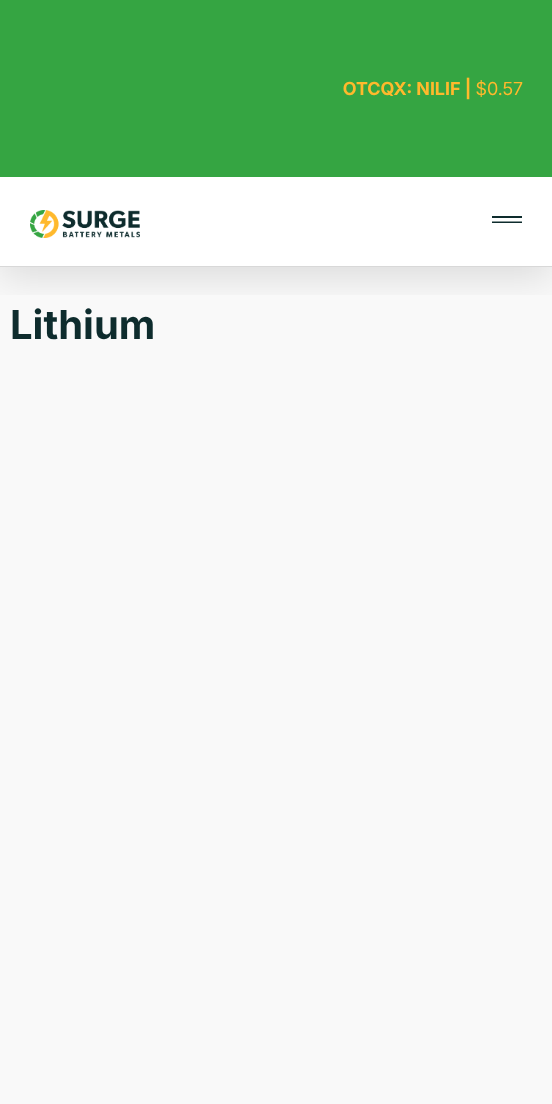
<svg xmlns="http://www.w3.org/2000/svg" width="552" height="1104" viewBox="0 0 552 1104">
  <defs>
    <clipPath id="clip1"><rect x="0" y="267" width="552" height="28"/></clipPath>
  </defs>
  <rect width="100%" height="100%" fill="rgb(255,255,255)"/>
  <rect x="0" y="267" width="552" height="837" fill="rgb(249,249,249)"/>
  <g clip-path="url(#clip1)">
    <rect x="0" y="187" width="552" height="90" fill="rgba(0,0,0,0.12)" filter="blur(19px)"/>
  </g>
  <rect x="0" y="0" width="552" height="177" fill="rgb(53,165,66)"/>
  <image x="343" y="77" width="180" height="23" href="pic1.png"/>
  <rect x="0" y="266" width="552" height="1" fill="rgb(216,216,216)"/>
  <image x="30" y="210" width="110" height="28" href="pic2.png"/>
  <path d="M522 216V218H492V216ZM492 223H522V221.5H492Z" fill="rgb(14,44,45)"/>
  <text x="10" y="339" font-family="Inter" font-size="40" font-weight="bold" fill="rgb(14,44,45)">Lithium</text>
</svg>
